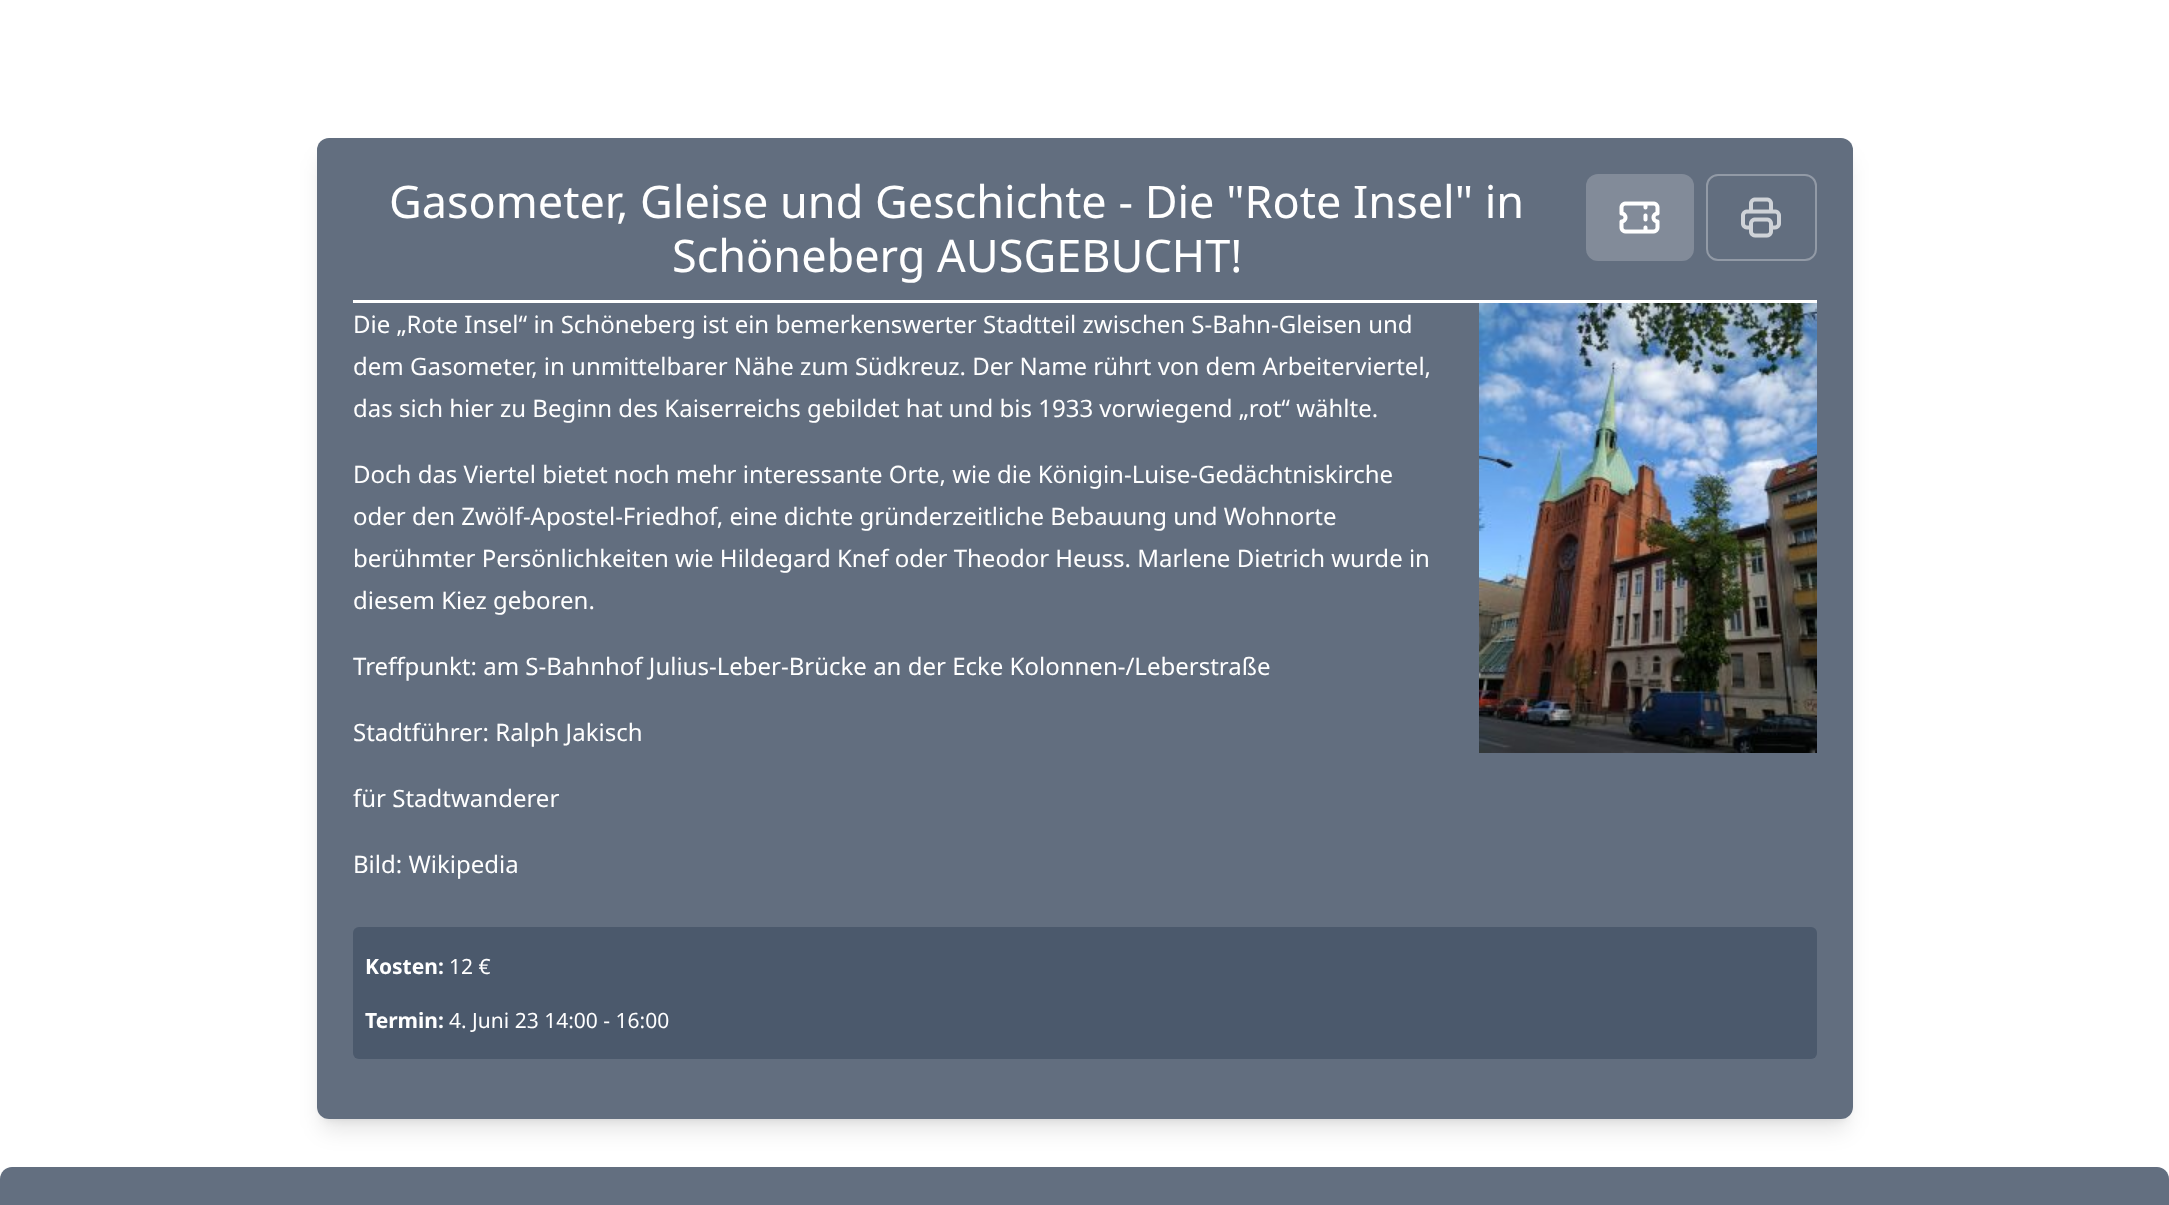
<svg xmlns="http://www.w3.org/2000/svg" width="2169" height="1205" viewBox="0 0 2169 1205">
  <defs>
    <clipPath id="clip1"><path d="M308 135H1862V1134H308ZM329 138H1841C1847.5 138 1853 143.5 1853 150V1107C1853 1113.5 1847.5 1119 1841 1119H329C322.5 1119 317 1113.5 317 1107V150C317 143.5 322.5 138 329 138Z" clip-rule="evenodd"/></clipPath>
    <clipPath id="clip2"><path d="M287 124H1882V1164H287ZM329 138H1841C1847.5 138 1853 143.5 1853 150V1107C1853 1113.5 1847.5 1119 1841 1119H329C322.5 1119 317 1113.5 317 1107V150C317 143.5 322.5 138 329 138Z" clip-rule="evenodd"/></clipPath>
  </defs>
  <rect width="100%" height="100%" fill="rgb(255,255,255)"/>
  <g clip-path="url(#clip1)">
    <rect x="323" y="150" width="1524" height="969" rx="6" fill="rgba(0,0,0,0.1)" filter="blur(4.5px)"/>
  </g>
  <g clip-path="url(#clip2)">
    <rect x="321" y="158" width="1527" height="972" rx="8" fill="rgba(0,0,0,0.1)" filter="blur(11px)"/>
  </g>
  <rect x="317" y="138" width="1536" height="981" rx="12" fill="rgba(71,85,105,0.85)"/>
  <rect x="353" y="300" width="1464" height="3" fill="rgb(255,255,255)"/>
  <g font-family="Noto Sans" font-size="45" fill="rgb(255,255,255)">
    <text x="389" y="218">Gasometer, Gleise und Geschichte - Die "Rote Insel" in</text>
    <text x="672" y="272">Schöneberg AUSGEBUCHT!</text>
  </g>
  <rect x="1586" y="174" width="108" height="87" rx="12" fill="rgb(130,139,153)"/>
  <image x="1619" y="201" width="41" height="33" href="pic1.png"/>
  <rect x="1707" y="175" width="109" height="85" rx="11" fill="none" stroke="rgb(146,154,166)" stroke-width="2"/>
  <image x="1741" y="197" width="40" height="41" href="pic2.png"/>
  <text x="353" y="333" font-family="Noto Sans" font-size="24" fill="rgb(255,255,255)">Die „Rote Insel“ in Schöneberg ist ein bemerkenswerter Stadtteil zwischen S-Bahn-Gleisen und</text>
  <image x="1479" y="303" width="338" height="450" href="pic3.png"/>
  <g font-family="Noto Sans" font-size="24" fill="rgb(255,255,255)">
    <text>
      <tspan x="353" y="375">dem Gasometer, in unmittelbarer Nähe zum Südkreuz. Der Name rührt von dem Arbeiterviertel,</tspan>
      <tspan x="353" y="417">das sich hier zu Beginn des Kaiserreichs gebildet hat und bis 1933 vorwiegend „rot“ wählte.</tspan>
    </text>
    <text>
      <tspan x="353" y="483">Doch das Viertel bietet noch mehr interessante Orte, wie die Königin-Luise-Gedächtniskirche</tspan>
      <tspan x="353" y="525">oder den Zwölf-Apostel-Friedhof, eine dichte gründerzeitliche Bebauung und Wohnorte</tspan>
      <tspan x="353" y="567">berühmter Persönlichkeiten wie Hildegard Knef oder Theodor Heuss. Marlene Dietrich wurde in</tspan>
      <tspan x="353" y="609">diesem Kiez geboren.</tspan>
    </text>
    <text x="353" y="675">Treffpunkt: am S-Bahnhof Julius-Leber-Brücke an der Ecke Kolonnen-/Leberstraße</text>
    <text x="353" y="741">Stadtführer: Ralph Jakisch</text>
    <text x="353" y="807">für Stadtwanderer</text>
    <text x="353" y="873">Bild: Wikipedia</text>
  </g>
  <rect x="353" y="927" width="1464" height="132" rx="6" fill="rgb(75,89,108)"/>
  <text x="365" y="974" font-family="Noto Sans" font-size="21" font-weight="bold" fill="rgb(255,255,255)">Kosten:</text>
  <text x="449" y="974" font-family="Noto Sans" font-size="21" fill="rgb(255,255,255)">12 €</text>
  <text x="365" y="1028" font-family="Noto Sans" font-size="21" font-weight="bold" fill="rgb(255,255,255)">Termin:</text>
  <text x="449" y="1028" font-family="Noto Sans" font-size="21" fill="rgb(255,255,255)">4. Juni 23 14:00 - 16:00</text>
  <path d="M12 1167H2157C2163.5 1167 2169 1172.5 2169 1179V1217H0V1179C0 1172.5 5.5 1167 12 1167Z" fill="rgb(99,111,128)"/>
</svg>
